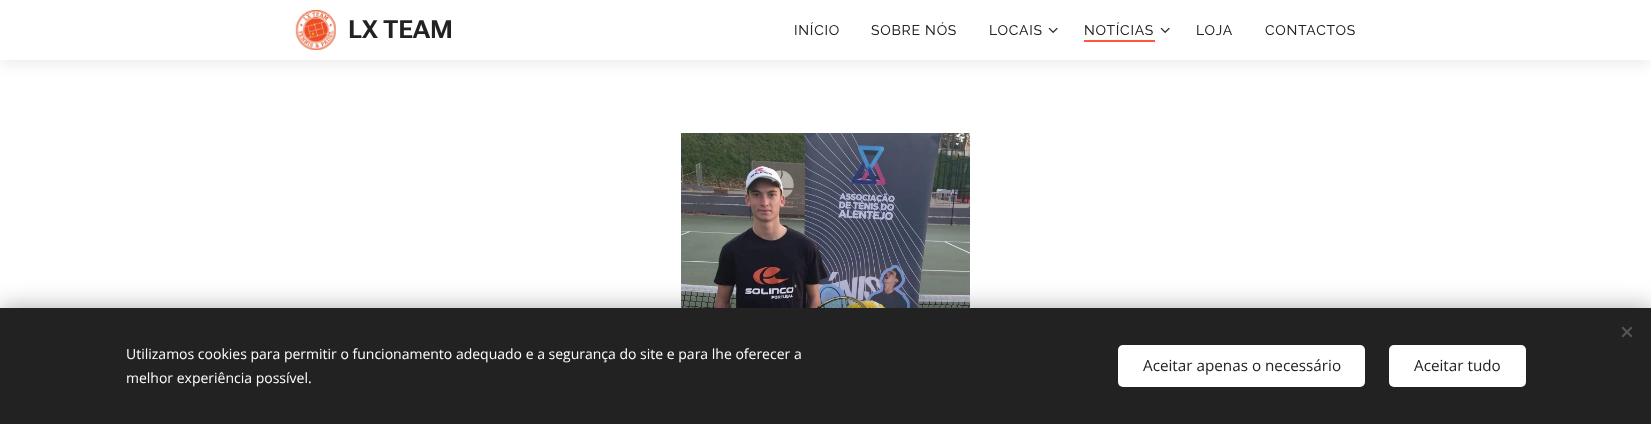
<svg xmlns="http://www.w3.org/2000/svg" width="1651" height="424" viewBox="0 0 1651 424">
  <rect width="100%" height="100%" fill="rgb(255,255,255)"/>
  <rect x="0" y="5" width="1651" height="60" fill="rgba(0,0,0,0.07)" filter="blur(7.5px)"/>
  <rect x="0" y="0" width="1651" height="60" fill="rgb(255,255,255)"/>
  <image x="295" y="10" width="41" height="40" href="pic1.png"/>
  <text x="348" y="38" font-family="Roboto Flex" font-size="25" font-weight="bold" fill="rgb(34,34,34)">LX TEAM</text>
  <g font-family="Raleway" font-size="14" letter-spacing="0.75" fill="rgb(34,34,34)">
    <text x="794" y="35">INÍCIO</text>
    <text x="871" y="35">SOBRE NÓS</text>
    <text x="989" y="35">LOCAIS</text>
  </g>
  <image x="1048" y="27" width="10" height="6" href="pic2.png"/>
  <text x="1084" y="35" font-family="Raleway" font-size="14" letter-spacing="0.75" fill="rgb(34,34,34)">NOTÍCIAS</text>
  <rect x="1084" y="40" width="71" height="2" fill="rgb(255,88,55)"/>
  <image x="1160" y="27" width="10" height="6" href="pic2.png"/>
  <g font-family="Raleway" font-size="14" letter-spacing="0.75" fill="rgb(34,34,34)">
    <text x="1196" y="35">LOJA</text>
    <text x="1265" y="35">CONTACTOS</text>
  </g>
  <image x="681" y="133" width="289" height="175" href="pic3.png"/>
  <rect x="0" y="308" width="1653" height="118" fill="rgba(0,0,0,0.33)" filter="blur(12.5px)"/>
  <rect x="0" y="308" width="1651" height="116" fill="rgb(34,34,34)"/>
  <path d="M1621.5 336L1631 326.5L1632.5 328L1623 337.5Z" fill="rgb(85,85,85)"/>
  <path d="M1623 326.5L1632.5 336L1631 337.5L1621.5 328Z" fill="rgb(85,85,85)"/>
  <g font-family="Open Sans" font-size="14" fill="rgb(255,255,255)">
    <text>
      <tspan x="126" y="359">Utilizamos cookies para permitir o funcionamento adequado e a segurança do site e para lhe oferecer a</tspan>
      <tspan x="126" y="383">melhor experiência possível.</tspan>
    </text>
  </g>
  <rect x="1118" y="345" width="247" height="42" rx="5" fill="rgb(255,255,255)"/>
  <text x="1143" y="371" font-family="Open Sans" font-size="15.25" fill="rgb(34,34,34)">Aceitar apenas o necessário</text>
  <rect x="1389" y="345" width="137" height="42" rx="5" fill="rgb(255,255,255)"/>
  <text x="1414" y="371" font-family="Open Sans" font-size="15.25" fill="rgb(34,34,34)">Aceitar tudo</text>
</svg>
